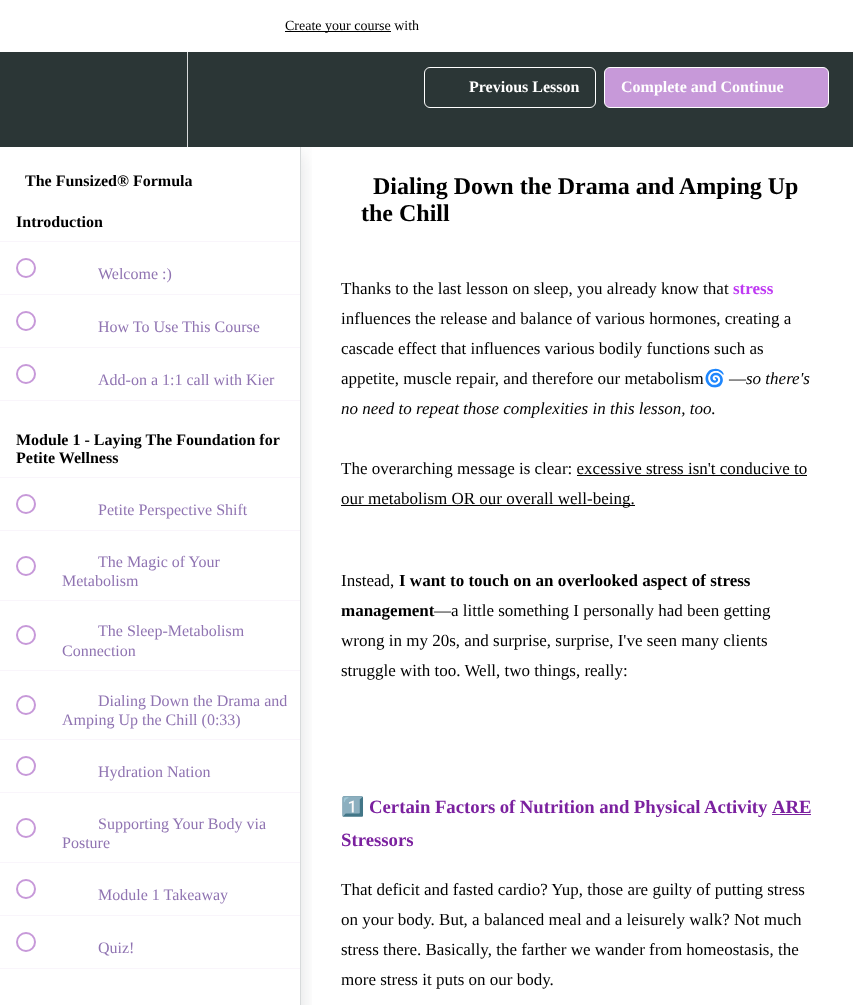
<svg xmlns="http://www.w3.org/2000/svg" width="853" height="1005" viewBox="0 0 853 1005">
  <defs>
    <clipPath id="clip1"><rect x="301" y="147" width="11" height="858"/></clipPath>
  </defs>
  <rect width="100%" height="100%" fill="rgb(255,255,255)"/>
  <g clip-path="url(#clip1)">
    <rect x="0" y="153" width="301" height="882" fill="rgba(32,39,45,0.15)" filter="blur(10px)"/>
  </g>
  <rect x="0" y="52" width="853" height="95" fill="rgb(43,54,54)"/>
  <rect x="285" y="31" width="106" height="1" fill="rgb(0,0,0)"/>
  <text x="285" y="30" font-family="Liberation Serif" font-size="14" fill="rgb(0,0,0)">Create your course with</text>
  <rect x="187" y="52" width="1" height="95" fill="rgb(215,218,219)"/>
  <rect x="424.5" y="67.5" width="171" height="40" rx="5.5" fill="none" stroke="rgb(255,255,255)"/>
  <text x="469" y="92" font-family="Liberation Serif" font-size="16" font-weight="bold" fill="rgb(255,255,255)">Previous Lesson</text>
  <rect x="604.5" y="67.5" width="224" height="40" rx="5.5" fill="rgb(199,153,217)" stroke="rgb(255,255,255)"/>
  <text x="621" y="92" font-family="Liberation Serif" font-size="16" font-weight="bold" fill="rgb(255,255,255)">Complete and Continue</text>
  <rect x="300" y="147" width="1" height="858" fill="rgb(215,218,219)"/>
  <text x="25" y="186" font-family="Liberation Serif" font-size="16" font-weight="bold" fill="rgb(0,0,0)">The Funsized® Formula</text>
  <rect x="0" y="241" width="300" height="1" fill="rgb(249,245,251)"/>
  <text x="16" y="227" font-family="Liberation Serif" font-size="16" font-weight="bold" fill="rgb(0,0,0)">Introduction</text>
  <rect x="0" y="294" width="300" height="1" fill="rgb(249,245,251)"/>
  <circle cx="26" cy="268" r="9" fill="none" stroke="rgb(199,153,217)" stroke-width="2"/>
  <text x="98" y="279" font-family="Liberation Serif" font-size="16" fill="rgb(144,116,178)">Welcome :)</text>
  <rect x="0" y="347" width="300" height="1" fill="rgb(249,245,251)"/>
  <circle cx="26" cy="321" r="9" fill="none" stroke="rgb(199,153,217)" stroke-width="2"/>
  <text x="98" y="332" font-family="Liberation Serif" font-size="16" fill="rgb(144,116,178)">How To Use This Course</text>
  <rect x="0" y="400" width="300" height="1" fill="rgb(249,245,251)"/>
  <circle cx="26" cy="374" r="9" fill="none" stroke="rgb(199,153,217)" stroke-width="2"/>
  <text x="98" y="385" font-family="Liberation Serif" font-size="16" fill="rgb(144,116,178)">Add-on a 1:1 call with Kier</text>
  <rect x="0" y="477" width="300" height="1" fill="rgb(249,245,251)"/>
  <g font-family="Liberation Serif" font-size="16" font-weight="bold" fill="rgb(0,0,0)">
    <text>
      <tspan x="16" y="445">Module 1 - Laying The Foundation for</tspan>
      <tspan x="16" y="463">Petite Wellness</tspan>
    </text>
  </g>
  <rect x="0" y="530" width="300" height="1" fill="rgb(249,245,251)"/>
  <circle cx="26" cy="504" r="9" fill="none" stroke="rgb(199,153,217)" stroke-width="2"/>
  <text x="98" y="515" font-family="Liberation Serif" font-size="16" fill="rgb(144,116,178)">Petite Perspective Shift</text>
  <rect x="0" y="600" width="300" height="1" fill="rgb(249,245,251)"/>
  <circle cx="26" cy="566" r="9" fill="none" stroke="rgb(199,153,217)" stroke-width="2"/>
  <g font-family="Liberation Serif" font-size="16" fill="rgb(144,116,178)">
    <text x="98" y="567">The Magic of Your</text>
    <text x="62" y="586">Metabolism</text>
  </g>
  <rect x="0" y="670" width="300" height="1" fill="rgb(249,245,251)"/>
  <circle cx="26" cy="635" r="9" fill="none" stroke="rgb(199,153,217)" stroke-width="2"/>
  <g font-family="Liberation Serif" font-size="16" fill="rgb(144,116,178)">
    <text x="98" y="636">The Sleep-Metabolism</text>
    <text x="62" y="656">Connection</text>
  </g>
  <rect x="0" y="739" width="300" height="1" fill="rgb(249,245,251)"/>
  <circle cx="26" cy="705" r="9" fill="none" stroke="rgb(199,153,217)" stroke-width="2"/>
  <g font-family="Liberation Serif" font-size="16" fill="rgb(144,116,178)">
    <text x="98" y="706">Dialing Down the Drama and</text>
    <text x="62" y="725">Amping Up the Chill (0:33)</text>
  </g>
  <rect x="0" y="792" width="300" height="1" fill="rgb(249,245,251)"/>
  <circle cx="26" cy="766" r="9" fill="none" stroke="rgb(199,153,217)" stroke-width="2"/>
  <text x="98" y="777" font-family="Liberation Serif" font-size="16" fill="rgb(144,116,178)">Hydration Nation</text>
  <rect x="0" y="862" width="300" height="1" fill="rgb(249,245,251)"/>
  <circle cx="26" cy="828" r="9" fill="none" stroke="rgb(199,153,217)" stroke-width="2"/>
  <g font-family="Liberation Serif" font-size="16" fill="rgb(144,116,178)">
    <text x="98" y="829">Supporting Your Body via</text>
    <text x="62" y="848">Posture</text>
  </g>
  <rect x="0" y="915" width="300" height="1" fill="rgb(249,245,251)"/>
  <circle cx="26" cy="889" r="9" fill="none" stroke="rgb(199,153,217)" stroke-width="2"/>
  <text x="98" y="900" font-family="Liberation Serif" font-size="16" fill="rgb(144,116,178)">Module 1 Takeaway</text>
  <rect x="0" y="968" width="300" height="1" fill="rgb(249,245,251)"/>
  <circle cx="26" cy="942" r="9" fill="none" stroke="rgb(199,153,217)" stroke-width="2"/>
  <text x="98" y="953" font-family="Liberation Serif" font-size="16" fill="rgb(144,116,178)">Quiz!</text>
  <g font-family="Liberation Serif" font-size="24" font-weight="bold" fill="rgb(0,0,0)">
    <text x="373" y="194">Dialing Down the Drama and Amping Up</text>
    <text x="361" y="221">the Chill</text>
  </g>
  <text x="341" y="294" font-family="Liberation Serif" font-size="17" fill="rgb(0,0,0)">Thanks to the last lesson on sleep, you already know that</text>
  <text x="733" y="294" font-family="Liberation Serif" font-size="17" font-weight="bold" fill="rgb(190,56,243)">stress</text>
  <g font-family="Liberation Serif" font-size="17" fill="rgb(0,0,0)">
    <text>
      <tspan x="341" y="324">influences the release and balance of various hormones, creating a</tspan>
      <tspan x="341" y="354">cascade effect that influences various bodily functions such as</tspan>
      <tspan x="341" y="384">appetite, muscle repair, and therefore our metabolism</tspan>
    </text>
  </g>
  <text x="704" y="384" font-family="Noto Color Emoji" font-size="17" fill="rgb(0,0,0)">🌀</text>
  <text x="729" y="384" font-family="Liberation Serif" font-size="17" fill="rgb(0,0,0)">—</text>
  <g font-family="Liberation Serif" font-size="17" font-style="italic" fill="rgb(0,0,0)">
    <text x="746" y="384">so there's</text>
    <text x="341" y="414">no need to repeat those complexities in this lesson, too.</text>
  </g>
  <text x="341" y="474" font-family="Liberation Serif" font-size="17" fill="rgb(0,0,0)">The overarching message is clear: excessive stress isn't conducive to</text>
  <rect x="341" y="505" width="294" height="1" fill="rgb(0,0,0)"/>
  <text x="341" y="504" font-family="Liberation Serif" font-size="17" fill="rgb(0,0,0)">our metabolism OR our overall well-being.</text>
  <rect x="577" y="475" width="230" height="1" fill="rgb(0,0,0)"/>
  <text x="341" y="586" font-family="Liberation Serif" font-size="17" fill="rgb(0,0,0)">Instead,</text>
  <g font-family="Liberation Serif" font-size="17" font-weight="bold" fill="rgb(0,0,0)">
    <text x="399" y="586">I want to touch on an overlooked aspect of stress</text>
    <text x="341" y="616">management</text>
  </g>
  <g font-family="Liberation Serif" font-size="17" fill="rgb(0,0,0)">
    <text x="434" y="616">—a little something I personally had been getting</text>
    <text>
      <tspan x="341" y="646">wrong in my 20s, and surprise, surprise, I've seen many clients</tspan>
      <tspan x="341" y="676">struggle with too. Well, two things, really:</tspan>
    </text>
  </g>
  <text x="341" y="813" font-family="Noto Color Emoji" font-size="18.75" font-weight="bold" fill="rgb(0,0,0)">1️⃣</text>
  <g font-family="Liberation Serif" font-size="18.75" font-weight="bold" fill="rgb(123,33,159)">
    <text x="369" y="813" word-spacing="-0.25">Certain Factors of Nutrition and Physical Activity</text>
    <text x="772" y="813">ARE</text>
  </g>
  <rect x="772" y="814" width="39" height="1" fill="rgb(123,33,159)"/>
  <text x="341" y="846" font-family="Liberation Serif" font-size="18.75" font-weight="bold" fill="rgb(123,33,159)">Stressors</text>
  <g font-family="Liberation Serif" font-size="17" fill="rgb(0,0,0)">
    <text>
      <tspan x="341" y="895">That deficit and fasted cardio? Yup, those are guilty of putting stress</tspan>
      <tspan x="341" y="925">on your body. But, a balanced meal and a leisurely walk? Not much</tspan>
      <tspan x="341" y="955">stress there. Basically, the farther we wander from homeostasis, the</tspan>
      <tspan x="341" y="985">more stress it puts on our body.</tspan>
    </text>
  </g>
</svg>
